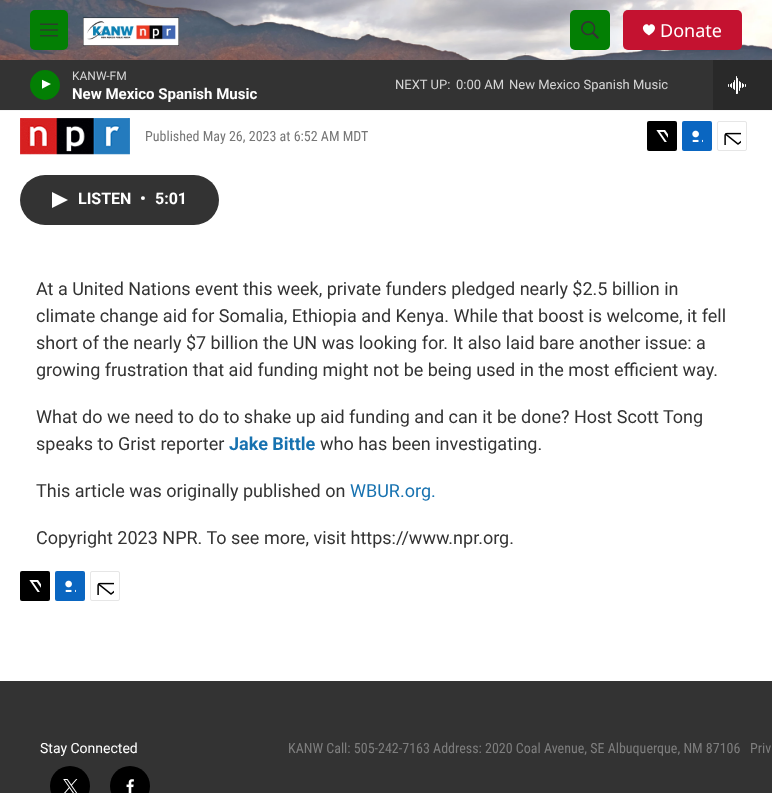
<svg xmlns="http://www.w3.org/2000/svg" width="772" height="793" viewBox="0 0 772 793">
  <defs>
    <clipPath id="clip1"><rect x="42" y="78" width="12" height="15"/></clipPath>
  </defs>
  <rect width="100%" height="100%" fill="rgb(255,255,255)"/>
  <rect x="0" y="110" width="772" height="1" fill="rgb(245,245,245)"/>
  <image x="0" y="0" width="772" height="60" href="pic1.png"/>
  <rect x="30" y="10" width="38" height="40" rx="5" fill="rgb(3,127,4)"/>
  <image x="40" y="23" width="18" height="14" href="pic2.png"/>
  <image x="83" y="17" width="96" height="29" href="pic3.png"/>
  <rect x="570" y="10" width="40" height="40" rx="5" fill="rgb(3,127,4)"/>
  <image x="581" y="21" width="18" height="18" href="pic4.png"/>
  <rect x="623" y="10" width="119" height="40" rx="5" fill="rgb(196,18,48)"/>
  <path d="M649 26C647 21 636.5 28 649 35.5C661.5 28 651 21 649 26Z" fill="rgb(255,255,255)"/>
  <text x="660" y="37" font-family="Noto Sans" font-size="18" fill="rgb(255,255,255)">Donate</text>
  <rect x="0" y="60" width="713" height="50" fill="rgb(51,51,51)"/>
  <circle cx="45" cy="85" r="15" fill="rgb(3,127,4)"/>
  <g clip-path="url(#clip1)">
    <path d="M41.5 79.5L51 84L41.5 89Z" fill="rgb(255,255,255)"/>
  </g>
  <text x="72" y="80" font-family="Roboto" font-size="12" fill="rgb(214,214,214)">KANW-FM</text>
  <text x="72" y="99" font-family="Roboto" font-size="15" font-weight="bold" fill="rgb(255,255,255)">New Mexico Spanish Music</text>
  <g font-family="Roboto" font-size="13" fill="rgb(214,214,214)">
    <text x="395" y="89">NEXT UP:</text>
    <text x="456" y="89">0:00 AM</text>
    <text x="509" y="89">New Mexico Spanish Music</text>
  </g>
  <rect x="713" y="60" width="59" height="50" fill="rgb(41,41,41)"/>
  <image x="728" y="76" width="18" height="18" href="pic5.png"/>
  <image x="20" y="118" width="110" height="37" href="pic6.png"/>
  <text x="145" y="141" font-family="Roboto Condensed" font-size="14" fill="rgb(118,118,118)">Published May 26, 2023 at 6:52 AM MDT</text>
  <rect x="647" y="121" width="30" height="30" rx="2" fill="rgb(0,0,0)"/>
  <image x="656" y="130" width="12" height="12" href="pic7.png"/>
  <rect x="682" y="121" width="30" height="30" rx="2" fill="rgb(10,102,193)"/>
  <image x="692" y="130" width="11" height="12" href="pic8.png"/>
  <rect x="717.5" y="121.5" width="29" height="29" rx="1.5" fill="none" stroke="rgb(230,230,230)"/>
  <image x="724" y="132" width="17" height="13" href="pic9.png"/>
  <rect x="20" y="175" width="199" height="50" rx="25" fill="rgb(51,51,51)"/>
  <path d="M52 192L68 200L52 208Z" fill="rgb(255,255,255)"/>
  <g font-family="Roboto" font-size="16" font-weight="bold" fill="rgb(255,255,255)">
    <text x="78" y="204">LISTEN</text>
    <text x="140" y="204">•</text>
    <text x="155" y="204">5:01</text>
  </g>
  <g font-family="Roboto" font-size="18" fill="rgb(51,51,51)">
    <text>
      <tspan x="36" y="295">At a United Nations event this week, private funders pledged nearly $2.5 billion in</tspan>
      <tspan x="36" y="322">climate change aid for Somalia, Ethiopia and Kenya. While that boost is welcome, it fell</tspan>
      <tspan x="36" y="349">short of the nearly $7 billion the UN was looking for. It also laid bare another issue: a</tspan>
      <tspan x="36" y="376">growing frustration that aid funding might not be being used in the most efficient way.</tspan>
    </text>
    <text>
      <tspan x="36" y="423">What do we need to do to shake up aid funding and can it be done? Host Scott Tong</tspan>
      <tspan x="36" y="450">speaks to Grist reporter</tspan>
    </text>
  </g>
  <text x="229" y="450" font-family="Roboto" font-size="18" font-weight="bold" fill="rgb(23,114,176)">Jake Bittle</text>
  <g font-family="Roboto" font-size="18" fill="rgb(51,51,51)">
    <text x="320" y="450">who has been investigating.</text>
    <text x="36" y="497">This article was originally published on</text>
  </g>
  <text x="350" y="497" font-family="Roboto" font-size="18" fill="rgb(23,114,176)">WBUR.org.</text>
  <text x="36" y="544" font-family="Roboto" font-size="18" fill="rgb(51,51,51)">Copyright 2023 NPR. To see more, visit https://www.npr.org.</text>
  <rect x="20" y="571" width="30" height="30" rx="2" fill="rgb(0,0,0)"/>
  <image x="29" y="580" width="12" height="12" href="pic7.png"/>
  <rect x="55" y="571" width="30" height="30" rx="2" fill="rgb(10,102,193)"/>
  <image x="65" y="580" width="11" height="12" href="pic8.png"/>
  <rect x="90.5" y="571.5" width="29" height="29" rx="1.5" fill="none" stroke="rgb(230,230,230)"/>
  <image x="97" y="582" width="17" height="13" href="pic9.png"/>
  <rect x="0" y="681" width="772" height="112" fill="rgb(51,51,51)"/>
  <text x="40" y="753" font-family="Roboto" font-size="14" fill="rgb(255,255,255)">Stay Connected</text>
  <circle cx="70" cy="786" r="20" fill="rgb(0,0,0)"/>
  <image x="63" y="779" width="15" height="14" href="pic10.png"/>
  <circle cx="130" cy="786" r="20" fill="rgb(0,0,0)"/>
  <image x="126" y="779" width="8" height="14" href="pic11.png"/>
  <g font-family="Roboto Condensed" font-size="14" fill="rgb(126,126,126)">
    <text x="288" y="753">KANW Call: 505-242-7163 Address: 2020 Coal Avenue, SE Albuquerque, NM 87106</text>
    <text x="750" y="753">Priv</text>
  </g>
</svg>
